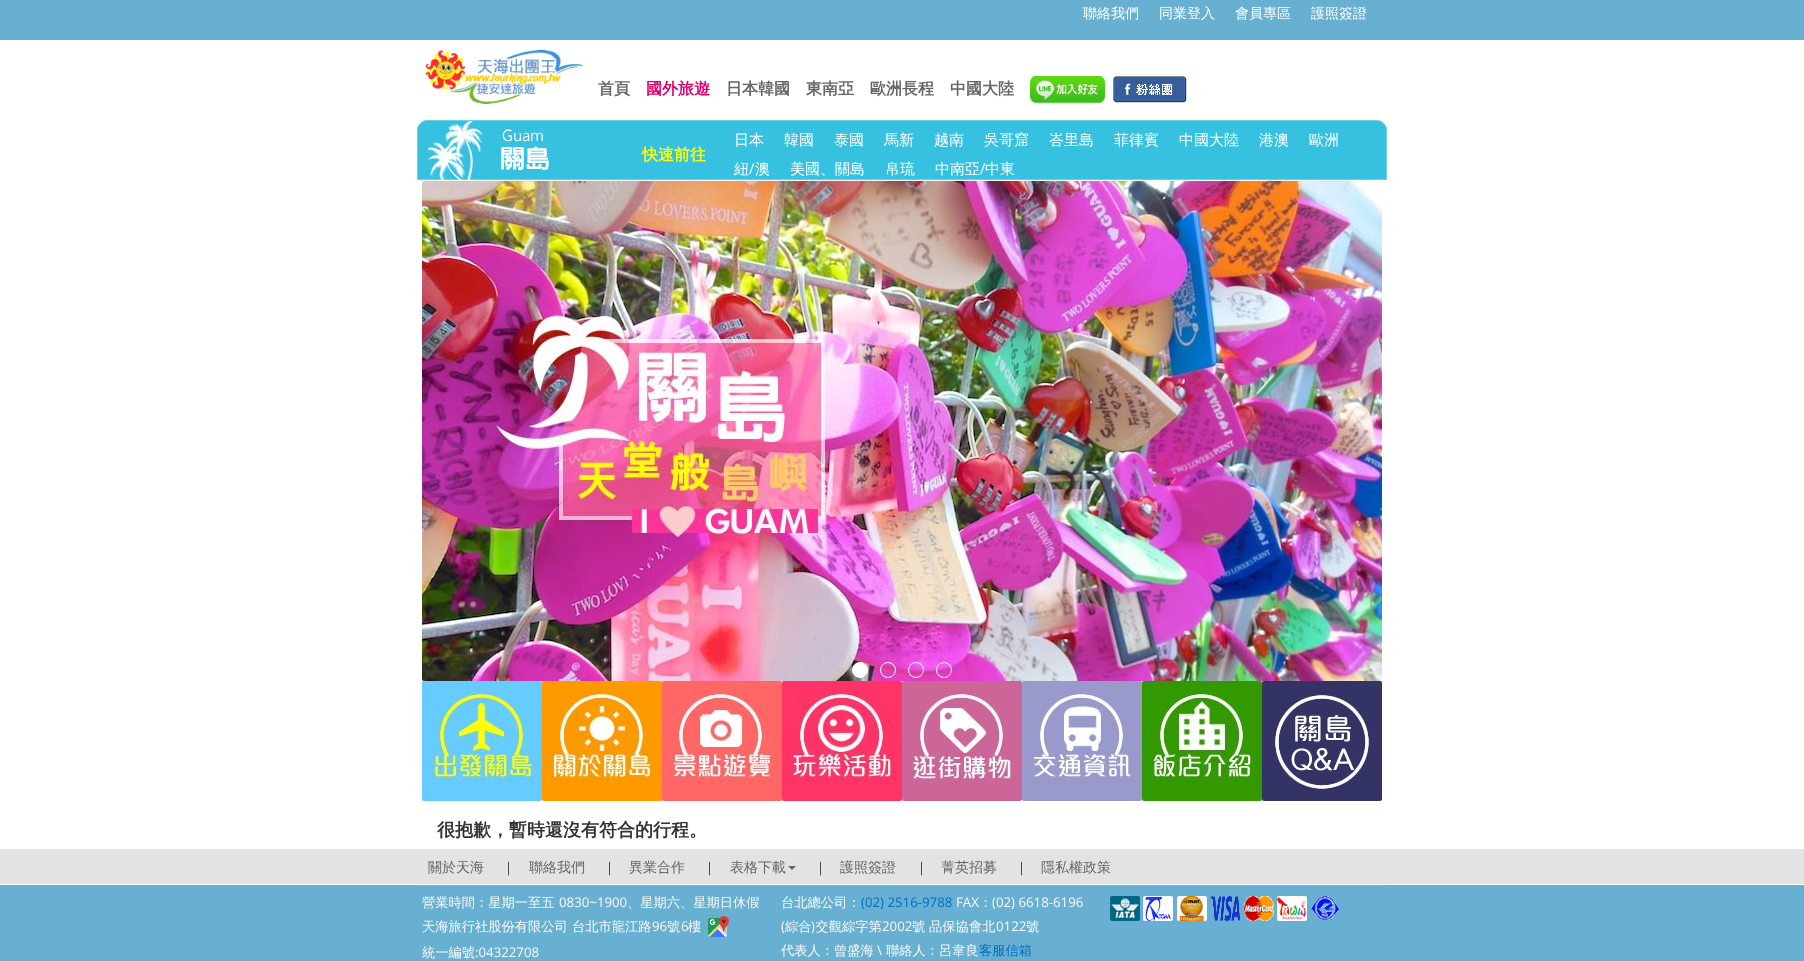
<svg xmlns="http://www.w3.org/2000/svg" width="1804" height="961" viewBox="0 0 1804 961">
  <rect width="100%" height="100%" fill="rgb(255,255,255)"/>
  <rect x="0" y="0" width="1804" height="40" fill="rgb(103,176,209)"/>
  <g font-family="WenQuanYi Zen Hei" font-size="14" font-weight="500" fill="rgb(255,255,255)">
    <text x="1083" y="18">聯絡我們</text>
    <text x="1159" y="18">同業登入</text>
    <text x="1235" y="18">會員專區</text>
    <text x="1311" y="18">護照簽證</text>
  </g>
  <image x="426" y="49" width="157" height="55" href="pic1.png"/>
  <text x="598" y="94" font-family="WenQuanYi Zen Hei" font-size="16" font-weight="bold" fill="rgb(102,102,102)">首頁</text>
  <text x="646" y="94" font-family="WenQuanYi Zen Hei" font-size="16" font-weight="bold" fill="rgb(217,0,108)">國外旅遊</text>
  <g font-family="WenQuanYi Zen Hei" font-size="16" font-weight="bold" fill="rgb(102,102,102)">
    <text x="726" y="94">日本韓國</text>
    <text x="806" y="94">東南亞</text>
    <text x="870" y="94">歐洲長程</text>
    <text x="950" y="94">中國大陸</text>
  </g>
  <image x="1030" y="76" width="75" height="28" href="pic2.png"/>
  <image x="1113" y="76" width="74" height="27" href="pic3.png"/>
  <path d="M427 120.5H1377C1382 120.5 1386.5 125 1386.5 130V179.5H417.5V130C417.5 125 422 120.5 427 120.5Z" fill="rgb(53,193,223)" stroke="rgb(105,210,231)"/>
  <image x="428" y="121" width="121" height="59" href="pic4.png"/>
  <text x="642" y="160" font-family="WenQuanYi Zen Hei" font-size="16" font-weight="bold" fill="rgb(255,255,0)">快速前往</text>
  <g font-family="WenQuanYi Zen Hei" font-size="15" font-weight="500" fill="rgb(255,255,255)">
    <text x="734" y="145">日本</text>
    <text x="784" y="145">韓國</text>
    <text x="834" y="145">泰國</text>
    <text x="884" y="145">馬新</text>
    <text x="934" y="145">越南</text>
    <text x="984" y="145">吳哥窟</text>
    <text x="1049" y="145">峇里島</text>
    <text x="1114" y="145">菲律賓</text>
    <text x="1179" y="145">中國大陸</text>
    <text x="1259" y="145">港澳</text>
    <text x="1309" y="145">歐洲</text>
    <text x="734" y="174">紐</text>
  </g>
  <text x="749" y="174" font-family="Open Sans" font-size="15" fill="rgb(255,255,255)">/</text>
  <g font-family="WenQuanYi Zen Hei" font-size="15" font-weight="500" fill="rgb(255,255,255)">
    <text x="755" y="174">澳</text>
    <text x="790" y="174">美國、關島</text>
    <text x="885" y="174">帛琉</text>
    <text x="935" y="174">中南亞</text>
  </g>
  <text x="980" y="174" font-family="Open Sans" font-size="15" fill="rgb(255,255,255)">/</text>
  <text x="985" y="174" font-family="WenQuanYi Zen Hei" font-size="15" font-weight="500" fill="rgb(255,255,255)">中東</text>
  <image x="422" y="181" width="960" height="500" href="pic5.png"/>
  <circle cx="860" cy="670" r="7.5" fill="rgb(255,255,255)" stroke="rgb(255,255,255)"/>
  <circle cx="888" cy="670" r="7.5" fill="none" stroke="rgb(255,255,255)"/>
  <circle cx="916" cy="670" r="7.5" fill="none" stroke="rgb(255,255,255)"/>
  <circle cx="944" cy="670" r="7.5" fill="none" stroke="rgb(255,255,255)"/>
  <rect x="422" y="681" width="960" height="1" fill="rgb(221,221,221)"/>
  <image x="422" y="681" width="120" height="120" href="pic6.png"/>
  <image x="542" y="681" width="120" height="120" href="pic7.png"/>
  <image x="662" y="681" width="120" height="120" href="pic8.png"/>
  <image x="782" y="681" width="120" height="120" href="pic9.png"/>
  <image x="902" y="681" width="120" height="120" href="pic10.png"/>
  <image x="1022" y="681" width="120" height="120" href="pic11.png"/>
  <image x="1142" y="681" width="120" height="120" href="pic12.png"/>
  <image x="1262" y="681" width="120" height="120" href="pic13.png"/>
  <text x="437" y="836" font-family="WenQuanYi Zen Hei" font-size="18" font-weight="bold" fill="rgb(51,51,51)">很抱歉，暫時還沒有符合的行程。</text>
  <rect x="0" y="849" width="1804" height="35" fill="rgb(225,227,228)"/>
  <rect x="413" y="883" width="978" height="1" fill="rgb(221,221,221)"/>
  <text x="428" y="872" font-family="WenQuanYi Zen Hei" font-size="14" font-weight="500" fill="rgb(102,102,102)">關於天海</text>
  <text x="505" y="872" font-family="Open Sans" font-size="13" fill="rgb(51,51,51)">|</text>
  <text x="529" y="872" font-family="WenQuanYi Zen Hei" font-size="14" font-weight="500" fill="rgb(102,102,102)">聯絡我們</text>
  <text x="606" y="872" font-family="Open Sans" font-size="13" fill="rgb(51,51,51)">|</text>
  <text x="629" y="872" font-family="WenQuanYi Zen Hei" font-size="14" font-weight="500" fill="rgb(102,102,102)">異業合作</text>
  <text x="706" y="872" font-family="Open Sans" font-size="13" fill="rgb(51,51,51)">|</text>
  <text x="730" y="872" font-family="WenQuanYi Zen Hei" font-size="14" font-weight="500" fill="rgb(102,102,102)">表格下載</text>
  <path d="M788 866H796L792 870Z" fill="rgb(102,102,102)"/>
  <text x="817" y="872" font-family="Open Sans" font-size="13" fill="rgb(51,51,51)">|</text>
  <text x="840" y="872" font-family="WenQuanYi Zen Hei" font-size="14" font-weight="500" fill="rgb(102,102,102)">護照簽證</text>
  <text x="918" y="872" font-family="Open Sans" font-size="13" fill="rgb(51,51,51)">|</text>
  <text x="941" y="872" font-family="WenQuanYi Zen Hei" font-size="14" font-weight="500" fill="rgb(102,102,102)">菁英招募</text>
  <text x="1018" y="872" font-family="Open Sans" font-size="13" fill="rgb(51,51,51)">|</text>
  <text x="1041" y="872" font-family="WenQuanYi Zen Hei" font-size="14" font-weight="500" fill="rgb(102,102,102)">隱私權政策</text>
  <rect x="0" y="885" width="1804" height="76" fill="rgb(103,176,209)"/>
  <text x="422" y="907" font-family="WenQuanYi Zen Hei" font-size="13.25" font-weight="500" fill="rgb(248,248,248)">營業時間：星期一至五</text>
  <text x="559" y="907" font-family="Open Sans" font-size="13.25" fill="rgb(248,248,248)">0830~1900</text>
  <g font-family="WenQuanYi Zen Hei" font-size="13.25" font-weight="500" fill="rgb(248,248,248)">
    <text x="627" y="907">、星期六、星期日休假</text>
    <text x="422" y="931">天海旅行社股份有限公司</text>
    <text x="572" y="931">台北市龍江路</text>
  </g>
  <text x="652" y="931" font-family="Open Sans" font-size="13.25" fill="rgb(248,248,248)">96</text>
  <text x="667" y="931" font-family="WenQuanYi Zen Hei" font-size="13.25" font-weight="500" fill="rgb(248,248,248)">號</text>
  <text x="681" y="931" font-family="Open Sans" font-size="13.25" fill="rgb(248,248,248)">6</text>
  <text x="688" y="931" font-family="WenQuanYi Zen Hei" font-size="13.25" font-weight="500" fill="rgb(248,248,248)">樓</text>
  <image x="708" y="916" width="21" height="21" href="pic14.png"/>
  <text x="422" y="957" font-family="WenQuanYi Zen Hei" font-size="13.25" font-weight="500" fill="rgb(248,248,248)">統一編號</text>
  <text x="475" y="957" font-family="Open Sans" font-size="13.25" fill="rgb(248,248,248)">:04322708</text>
  <text x="781" y="907" font-family="WenQuanYi Zen Hei" font-size="13.25" font-weight="500" fill="rgb(248,248,248)">台北總公司：</text>
  <text x="861" y="907" font-family="Open Sans" font-size="13.25" fill="rgb(0,110,197)">(02) 2516-9788</text>
  <text x="956" y="907" font-family="Open Sans" font-size="13.25" fill="rgb(248,248,248)">FAX</text>
  <text x="979" y="907" font-family="WenQuanYi Zen Hei" font-size="13.25" font-weight="500" fill="rgb(248,248,248)">：</text>
  <g font-family="Open Sans" font-size="13.25" fill="rgb(248,248,248)">
    <text x="992" y="907">(02) 6618-6196</text>
    <text x="781" y="931">(</text>
  </g>
  <g font-family="WenQuanYi Zen Hei" font-size="13.25" font-weight="500" fill="rgb(248,248,248)">
    <text x="785" y="931">綜合 交觀綜字第</text>
    <text x="912" y="931">號</text>
    <text x="929" y="931">品保協會北</text>
    <text x="1026" y="931">號</text>
  </g>
  <g font-family="Open Sans" font-size="13.25" fill="rgb(248,248,248)">
    <text x="811" y="931">)</text>
    <text x="882" y="931">2002</text>
    <text x="996" y="931">0122</text>
  </g>
  <text x="781" y="955" font-family="WenQuanYi Zen Hei" font-size="13.25" font-weight="500" fill="rgb(248,248,248)">代表人：曾盛海</text>
  <text x="877" y="955" font-family="Open Sans" font-size="13.25" fill="rgb(248,248,248)">\</text>
  <text x="886" y="955" font-family="WenQuanYi Zen Hei" font-size="13.25" font-weight="500" fill="rgb(248,248,248)">聯絡人：呂韋良</text>
  <text x="979" y="955" font-family="WenQuanYi Zen Hei" font-size="13.25" font-weight="500" fill="rgb(0,110,197)">客服信箱</text>
  <image x="1110" y="896" width="30" height="25" href="pic15.png"/>
  <image x="1143" y="896" width="30" height="25" href="pic16.png"/>
  <image x="1177" y="896" width="30" height="25" href="pic17.png"/>
  <image x="1210" y="896" width="30" height="25" href="pic18.png"/>
  <image x="1244" y="896" width="30" height="25" href="pic19.png"/>
  <image x="1277" y="896" width="30" height="25" href="pic20.png"/>
  <image x="1311" y="896" width="28" height="25" href="pic21.png"/>
</svg>
